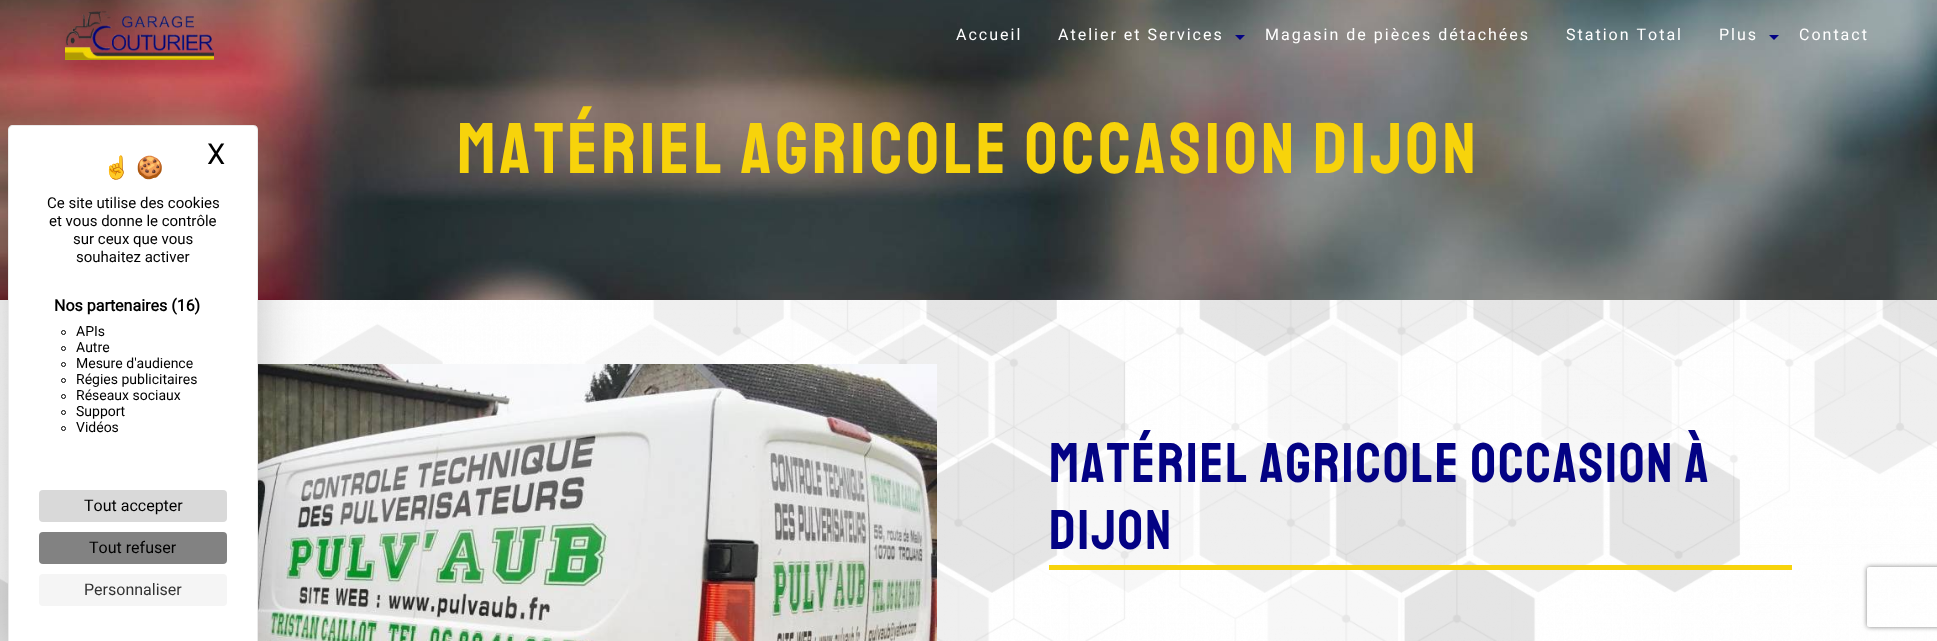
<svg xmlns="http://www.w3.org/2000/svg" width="1937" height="641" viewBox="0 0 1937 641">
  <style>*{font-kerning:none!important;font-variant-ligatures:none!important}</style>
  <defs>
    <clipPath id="clip1"><path d="M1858 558H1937V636H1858ZM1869 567H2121C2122 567 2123 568 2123 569V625C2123 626 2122 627 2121 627H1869C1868 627 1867 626 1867 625V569C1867 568 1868 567 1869 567Z" clip-rule="evenodd"/></clipPath>
  </defs>
  <rect width="100%" height="100%" fill="rgb(255,255,255)"/>
  <image x="0" y="300" width="1937" height="341" href="pic1.png"/>
  <image x="0" y="0" width="1937" height="300" href="pic3.png"/>
  <image x="65" y="11" width="149" height="49" href="pic2.png"/>
  <image x="258" y="364" width="679" height="277" href="pic4.png"/>
  <rect x="8" y="145" width="250" height="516" rx="5" fill="rgba(0,0,0,0.25)" filter="blur(30px)"/>
  <path d="M13 125H253C256 125 258 127 258 130V641H8V130C8 127 10 125 13 125Z" fill="rgb(255,255,255)"/>
  <path d="M13 125H253C256 125 258 127 258 130V641H8V130C8 127 10 125 13 125ZM13 126H253C255 126 257 128 257 130V641H9V130C9 128 11 126 13 126Z" fill="rgba(0,0,0,0.08)" fill-rule="evenodd"/>
  <g font-family="Noto Color Emoji" font-size="22" fill="rgb(0,0,0)">
    <text x="103" y="175">☝️</text>
    <text x="136" y="175">🍪</text>
  </g>
  <text x="207" y="164" font-family="Roboto" font-size="29" fill="rgb(0,0,0)">X</text>
  <g font-family="Roboto" font-size="15" fill="rgb(0,0,0)">
    <text x="47" y="208">Ce site utilise des cookies</text>
    <text x="49" y="226">et vous donne le contrôle</text>
    <text x="73" y="244">sur ceux que vous</text>
    <text x="76" y="262">souhaitez activer</text>
  </g>
  <text x="54" y="311" font-family="Roboto" font-size="16" font-weight="bold" fill="rgb(0,0,0)">Nos partenaires (16)</text>
  <circle cx="63.5" cy="332.5" r="2" fill="none" stroke="rgb(0,0,0)"/>
  <text x="76" y="336" font-family="Roboto" font-size="14" fill="rgb(0,0,0)">APIs</text>
  <circle cx="63.5" cy="348.5" r="2" fill="none" stroke="rgb(0,0,0)"/>
  <text x="76" y="352" font-family="Roboto" font-size="14" fill="rgb(0,0,0)">Autre</text>
  <circle cx="63.5" cy="364.5" r="2" fill="none" stroke="rgb(0,0,0)"/>
  <text x="76" y="368" font-family="Roboto" font-size="14" fill="rgb(0,0,0)">Mesure d'audience</text>
  <circle cx="63.5" cy="380.5" r="2" fill="none" stroke="rgb(0,0,0)"/>
  <text x="76" y="384" font-family="Roboto" font-size="14" fill="rgb(0,0,0)">Régies publicitaires</text>
  <circle cx="63.5" cy="396.5" r="2" fill="none" stroke="rgb(0,0,0)"/>
  <text x="76" y="400" font-family="Roboto" font-size="14" fill="rgb(0,0,0)">Réseaux sociaux</text>
  <circle cx="63.5" cy="412.5" r="2" fill="none" stroke="rgb(0,0,0)"/>
  <text x="76" y="416" font-family="Roboto" font-size="14" fill="rgb(0,0,0)">Support</text>
  <circle cx="63.5" cy="428.5" r="2" fill="none" stroke="rgb(0,0,0)"/>
  <text x="76" y="432" font-family="Roboto" font-size="14" fill="rgb(0,0,0)">Vidéos</text>
  <rect x="39" y="490" width="188" height="32" rx="4" fill="rgb(217,217,217)"/>
  <text x="84" y="511" font-family="Roboto" font-size="16" fill="rgb(0,0,0)">Tout accepter</text>
  <rect x="39" y="532" width="188" height="32" rx="4" fill="rgb(130,130,130)"/>
  <text x="89" y="553" font-family="Roboto" font-size="16" fill="rgb(0,0,0)">Tout refuser</text>
  <rect x="39" y="574" width="188" height="32" rx="4" fill="rgb(245,245,245)"/>
  <text x="84" y="595" font-family="Roboto" font-size="16" fill="rgb(51,51,51)">Personnaliser</text>
  <g font-family="Roboto" font-size="16" letter-spacing="2" fill="rgb(255,255,255)">
    <text x="956" y="40">Accueil</text>
    <text x="1058" y="40">Atelier et Services</text>
  </g>
  <path d="M1235 35H1245L1240 40Z" fill="rgb(3,2,132)"/>
  <g font-family="Roboto" font-size="16" letter-spacing="2" fill="rgb(255,255,255)">
    <text x="1265" y="40">Magasin de pièces détachées</text>
    <text x="1566" y="40">Station Total</text>
    <text x="1719" y="40">Plus</text>
  </g>
  <path d="M1769 35H1779L1774 40Z" fill="rgb(3,2,132)"/>
  <text x="1799" y="40" font-family="Roboto" font-size="16" letter-spacing="2" fill="rgb(255,255,255)">Contact</text>
  <text x="457" y="173" font-family="Staatliches" font-size="72" letter-spacing="4" fill="rgb(247,211,11)">matériel agricole occasion Dijon</text>
  <rect x="1049" y="565" width="743" height="5" fill="rgb(247,211,11)"/>
  <g font-family="Staatliches" font-size="56" letter-spacing="2" fill="rgb(3,2,132)">
    <text>
      <tspan x="1049" y="482">matériel agricole occasion à</tspan>
      <tspan x="1049" y="549">Dijon</tspan>
    </text>
  </g>
  <g clip-path="url(#clip1)">
    <rect x="1867" y="567" width="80" height="60" rx="2" fill="rgb(128,128,128)" filter="blur(2.5px)"/>
  </g>
</svg>
